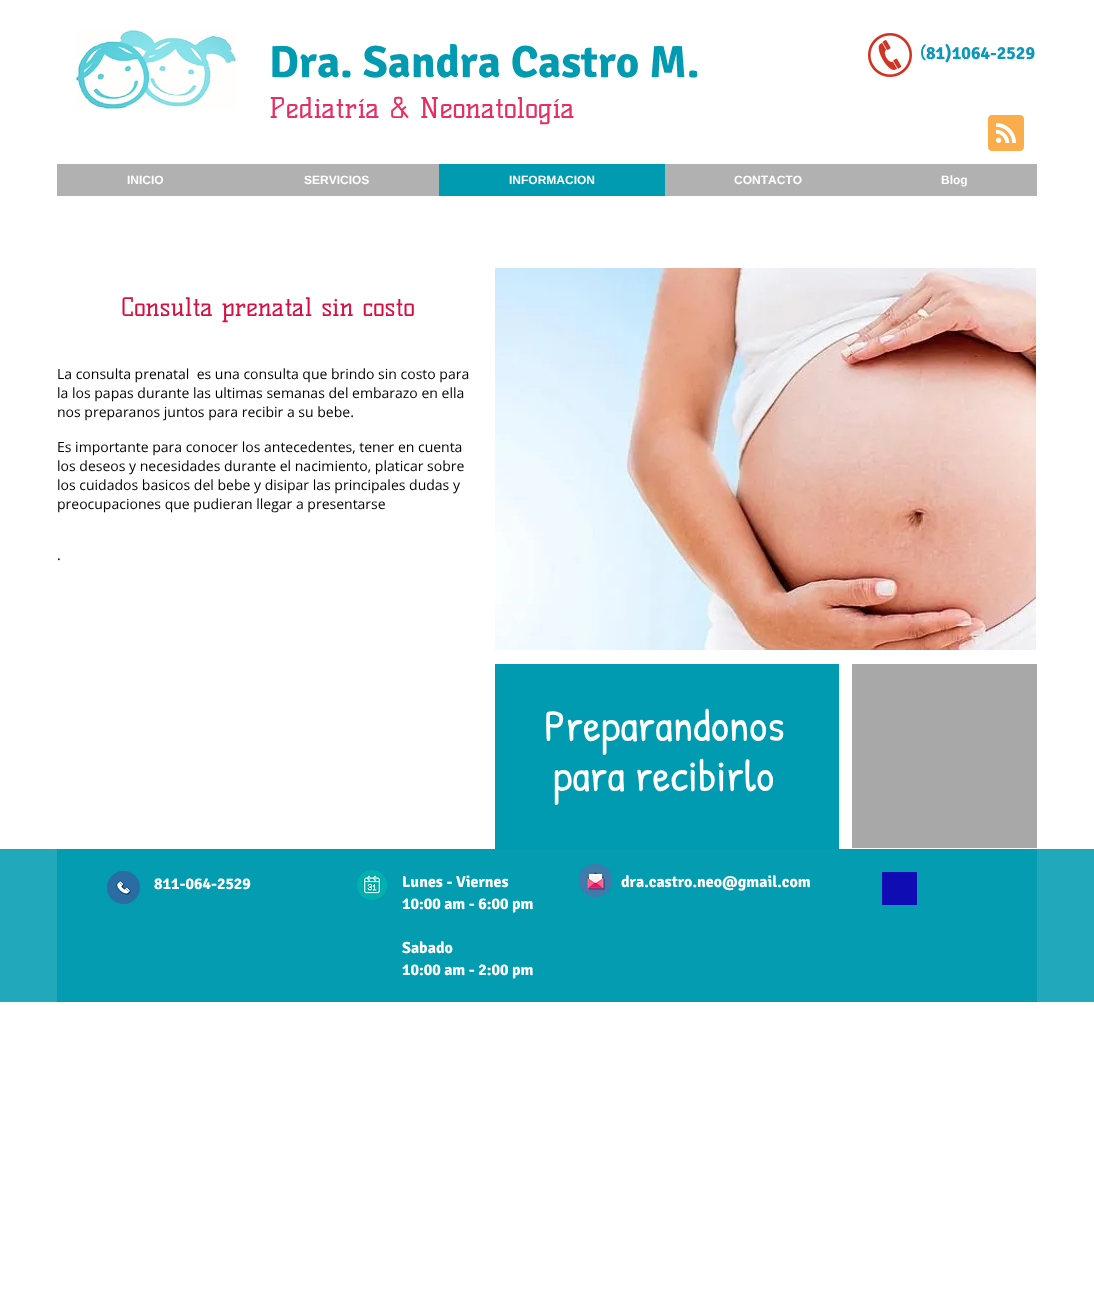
<svg xmlns="http://www.w3.org/2000/svg" width="1094" height="1298" viewBox="0 0 1094 1298">
  <style>*{font-kerning:none!important;font-variant-ligatures:none!important}</style>
  <rect width="100%" height="100%" fill="rgb(255,255,255)"/>
  <image x="76" y="30" width="160" height="79" href="pic1.png"/>
  <text x="269" y="77" font-family="Signika" font-size="45" font-weight="bold" fill="rgb(0,155,176)">Dra. Sandra Castro M.</text>
  <text x="269" y="118" font-family="Kelly Slab" font-size="28" fill="rgb(230,46,101)">Pediatría &amp; Neonatología</text>
  <image x="868" y="33" width="44" height="44" href="pic2.png"/>
  <text x="920" y="59" font-family="Patrick Hand" font-size="18" font-weight="bold" fill="rgb(13,151,186)">(</text>
  <text x="926" y="59" font-family="Signika" font-size="18" font-weight="bold" fill="rgb(13,151,186)">81)1064-2529</text>
  <image x="988" y="115" width="36" height="36" href="pic3.png"/>
  <rect x="57" y="164" width="382" height="32" fill="rgb(177,177,177)"/>
  <g font-family="Liberation Sans" font-size="12" font-weight="bold" fill="rgb(255,255,255)">
    <text x="127" y="184">INICIO</text>
    <text x="304" y="184">SERVICIOS</text>
  </g>
  <rect x="439" y="164" width="226" height="32" fill="rgb(0,155,176)"/>
  <text x="509" y="184" font-family="Liberation Sans" font-size="12" font-weight="bold" fill="rgb(255,255,255)">INFORMACION</text>
  <rect x="665" y="164" width="372" height="32" fill="rgb(177,177,177)"/>
  <g font-family="Liberation Sans" font-size="12" font-weight="bold" fill="rgb(255,255,255)">
    <text x="734" y="184">CONTACTO</text>
    <text x="941" y="184">Blog</text>
  </g>
  <text x="121" y="316" font-family="Kelly Slab" font-size="25" fill="rgb(214,16,67)">Consulta prenatal sin costo</text>
  <g font-family="Open Sans" font-size="14" fill="rgb(0,0,0)">
    <text xml:space="preserve"><tspan x="57" y="379">La consulta prenatal  es una consulta que brindo sin costo para</tspan><tspan x="57" y="398">la los papas durante las ultimas semanas del embarazo en ella</tspan><tspan x="57" y="417">nos preparanos juntos para recibir a su bebe.</tspan></text>
    <text>
      <tspan x="57" y="452">Es importante para conocer los antecedentes, tener en cuenta</tspan>
      <tspan x="57" y="471">los deseos y necesidades durante el nacimiento, platicar sobre</tspan>
      <tspan x="57" y="490">los cuidados basicos del bebe y disipar las principales dudas y</tspan>
      <tspan x="57" y="509">preocupaciones que pudieran llegar a presentarse</tspan>
    </text>
    <text x="57" y="560">.</text>
  </g>
  <image x="495" y="268" width="541" height="382" href="pic4.png"/>
  <rect x="495" y="664" width="344" height="185" fill="rgb(0,155,176)"/>
  <g font-family="Patrick Hand" font-size="45" fill="rgb(255,255,255)">
    <text x="544" y="741">Preparandonos</text>
    <text x="553" y="791">para recibirlo</text>
  </g>
  <rect x="852" y="664" width="185" height="184" fill="rgb(168,168,168)"/>
  <rect x="0" y="849" width="1094" height="153" fill="rgb(33,168,186)"/>
  <rect x="57" y="849" width="980" height="153" fill="rgb(3,156,177)"/>
  <image x="107" y="871" width="33" height="33" href="pic5.png"/>
  <text x="154" y="889" font-family="Signika" font-size="16" font-weight="bold" fill="rgb(255,255,255)">811-064-2529</text>
  <image x="357" y="870" width="30" height="30" href="pic6.png"/>
  <g font-family="Signika" font-size="16" font-weight="bold" fill="rgb(255,255,255)">
    <text>
      <tspan x="402" y="887">Lunes - Viernes</tspan>
      <tspan x="402" y="909">10:00 am - 6:00 pm</tspan>
    </text>
    <text>
      <tspan x="402" y="953">Sabado</tspan>
      <tspan x="402" y="975">10:00 am - 2:00 pm</tspan>
    </text>
  </g>
  <image x="579" y="864" width="33" height="33" href="pic7.png"/>
  <text x="621" y="887" font-family="Signika" font-size="16" font-weight="bold" fill="rgb(255,255,255)">dra.castro.neo@gmail.com</text>
  <rect x="882" y="872" width="35" height="33" fill="rgb(15,12,179)"/>
</svg>
